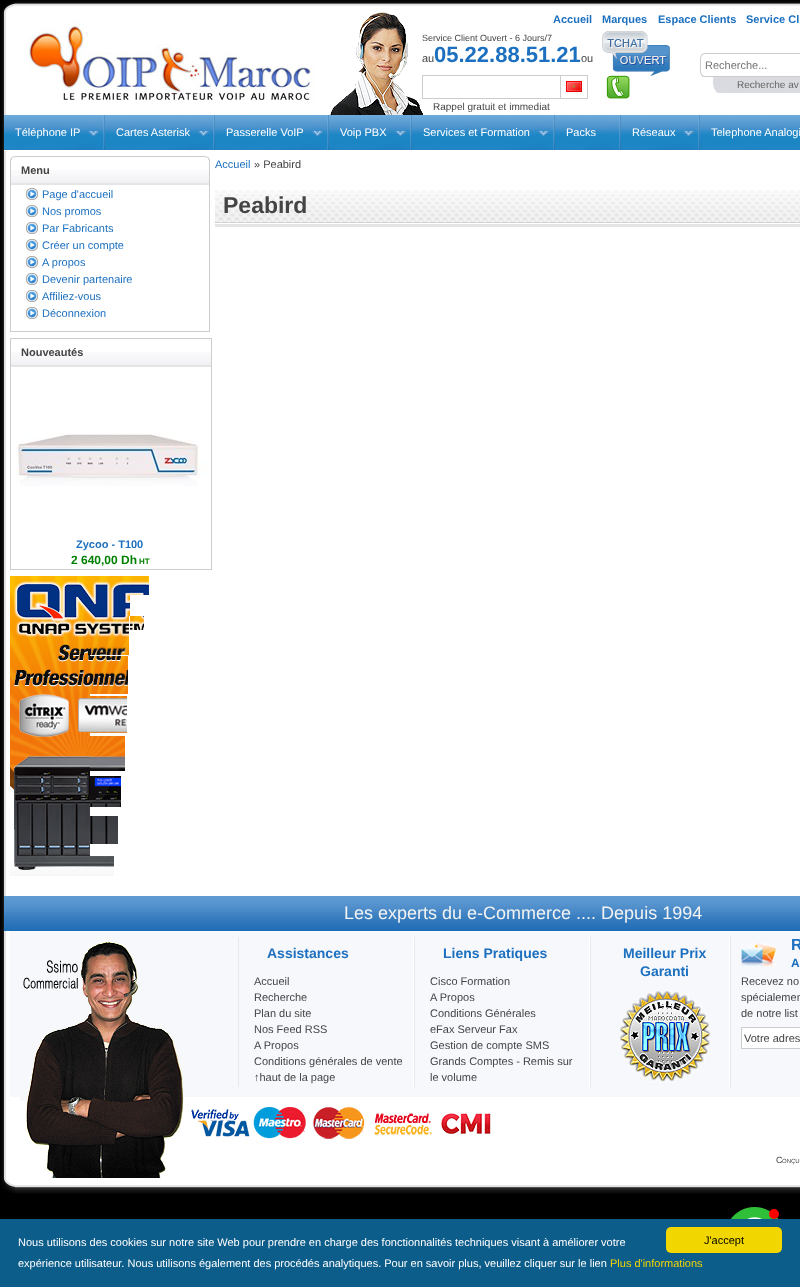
<svg xmlns="http://www.w3.org/2000/svg" width="800" height="1287" viewBox="0 0 800 1287">
  <rect width="100%" height="100%" fill="rgb(0,0,0)"/>
  <image x="2" y="1" width="14" height="11" href="pic1.png"/>
  <image x="16" y="0" width="784" height="12" href="pic2.png"/>
  <image x="1" y="12" width="9" height="1167" href="pic3.png"/>
  <rect x="10" y="12" width="790" height="1167" fill="rgb(255,255,255)"/>
  <image x="28" y="20" width="288" height="80" href="pic4.png"/>
  <g font-family="Liberation Sans" font-size="11" font-weight="bold" fill="rgb(28,112,191)">
    <text x="553" y="23">Accueil</text>
    <text x="602" y="23">Marques</text>
    <text x="658" y="23">Espace Clients</text>
    <text x="746" y="23">Service Cl</text>
  </g>
  <image x="330" y="12" width="93" height="103" href="pic5.png"/>
  <text x="422" y="41" font-family="Liberation Sans" font-size="9" fill="rgb(68,68,68)">Service Client Ouvert - 6 Jours/7</text>
  <image x="606" y="75" width="24" height="24" href="pic8.png"/>
  <image x="602" y="31" width="68" height="45" href="pic6.png"/>
  <text x="422" y="62" font-family="Liberation Sans" font-size="11" fill="rgb(68,68,68)">au</text>
  <text x="434" y="62" font-family="Liberation Sans" font-size="22" font-weight="bold" fill="rgb(28,112,191)">05.22.88.51.21</text>
  <text x="581" y="62" font-family="Liberation Sans" font-size="11" fill="rgb(68,68,68)">ou</text>
  <rect x="422.5" y="75.5" width="141" height="23" fill="none" stroke="rgb(204,204,204)"/>
  <rect x="563" y="76" width="1" height="22" fill="rgb(255,255,255)"/>
  <rect x="560.5" y="75.5" width="27" height="23" fill="none" stroke="rgb(204,204,204)"/>
  <image x="566" y="81" width="16" height="11" href="pic7.png"/>
  <text x="433" y="110" font-family="Liberation Sans" font-size="10" fill="rgb(68,68,68)">Rappel gratuit et immediat</text>
  <path d="M705 53H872V77H704C699 76 700 69 700 65C700 61 699 53 705 53ZM705 54H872V76H705C700 76 701 68 701 65C701 62 700 54 705 54Z" fill="rgb(204,204,204)" fill-rule="evenodd"/>
  <text x="705" y="69" font-family="Liberation Sans" font-size="11" fill="rgb(117,117,117)">Recherche...</text>
  <image x="713" y="77" width="87" height="16" href="pic9.png"/>
  <text x="737" y="88" font-family="Liberation Sans" font-size="10" fill="rgb(102,102,102)">Recherche av</text>
  <image x="4" y="115" width="796" height="36" href="pic10.png"/>
  <image x="19" y="115" width="86" height="35" href="pic11.png"/>
  <text x="15" y="136" font-family="Liberation Sans" font-size="11" fill="rgb(255,255,255)">Téléphone IP</text>
  <image x="129" y="115" width="86" height="35" href="pic12.png"/>
  <text x="116" y="136" font-family="Liberation Sans" font-size="11" fill="rgb(255,255,255)">Cartes Asterisk</text>
  <image x="243" y="115" width="86" height="35" href="pic13.png"/>
  <text x="226" y="136" font-family="Liberation Sans" font-size="11" fill="rgb(255,255,255)">Passerelle VoIP</text>
  <image x="335" y="115" width="77" height="35" href="pic14.png"/>
  <text x="340" y="136" font-family="Liberation Sans" font-size="11" fill="rgb(255,255,255)">Voip PBX</text>
  <image x="435" y="115" width="120" height="35" href="pic15.png"/>
  <text x="423" y="136" font-family="Liberation Sans" font-size="11" fill="rgb(255,255,255)">Services et Formation</text>
  <image x="585" y="115" width="36" height="35" href="pic16.png"/>
  <image x="604" y="131" width="11" height="5" href="pic17.png"/>
  <text x="566" y="136" font-family="Liberation Sans" font-size="11" fill="rgb(255,255,255)">Packs</text>
  <image x="675" y="115" width="25" height="35" href="pic18.png"/>
  <text x="632" y="136" font-family="Liberation Sans" font-size="11" fill="rgb(255,255,255)">Réseaux</text>
  <image x="758" y="147" width="27" height="1" href="pic19.png"/>
  <text x="711" y="136" font-family="Liberation Sans" font-size="11" fill="rgb(255,255,255)">Telephone Analogi</text>
  <rect x="10.5" y="156.5" width="199" height="175" fill="none" stroke="rgb(205,205,205)"/>
  <image x="11" y="170" width="198" height="13" href="pic20.png"/>
  <rect x="11" y="183" width="198" height="2" fill="rgb(229,229,229)"/>
  <rect x="10" y="156" width="5" height="2" fill="rgb(255,255,255)"/>
  <image x="10" y="156" width="5" height="5" href="pic21.png"/>
  <rect x="205" y="156" width="5" height="2" fill="rgb(255,255,255)"/>
  <image x="205" y="156" width="5" height="5" href="pic22.png"/>
  <text x="21" y="174" font-family="Liberation Sans" font-size="11" font-weight="bold" fill="rgb(68,68,68)">Menu</text>
  <image x="26" y="188" width="12" height="12" href="pic23.png"/>
  <text x="42" y="198" font-family="Liberation Sans" font-size="11" fill="rgb(28,112,191)">Page d'accueil</text>
  <image x="26" y="205" width="12" height="12" href="pic23.png"/>
  <text x="42" y="215" font-family="Liberation Sans" font-size="11" fill="rgb(28,112,191)">Nos promos</text>
  <image x="26" y="222" width="12" height="12" href="pic23.png"/>
  <text x="42" y="232" font-family="Liberation Sans" font-size="11" fill="rgb(28,112,191)">Par Fabricants</text>
  <image x="26" y="239" width="12" height="12" href="pic23.png"/>
  <text x="42" y="249" font-family="Liberation Sans" font-size="11" fill="rgb(28,112,191)">Créer un compte</text>
  <image x="26" y="256" width="12" height="12" href="pic23.png"/>
  <text x="42" y="266" font-family="Liberation Sans" font-size="11" fill="rgb(28,112,191)">A propos</text>
  <image x="26" y="273" width="12" height="12" href="pic23.png"/>
  <text x="42" y="283" font-family="Liberation Sans" font-size="11" fill="rgb(28,112,191)">Devenir partenaire</text>
  <image x="26" y="290" width="12" height="12" href="pic23.png"/>
  <text x="42" y="300" font-family="Liberation Sans" font-size="11" fill="rgb(28,112,191)">Affiliez-vous</text>
  <image x="26" y="307" width="12" height="12" href="pic23.png"/>
  <text x="42" y="317" font-family="Liberation Sans" font-size="11" fill="rgb(28,112,191)">Déconnexion</text>
  <rect x="10.5" y="338.5" width="201" height="231" fill="none" stroke="rgb(205,205,205)"/>
  <image x="11" y="352" width="200" height="13" href="pic24.png"/>
  <rect x="11" y="365" width="200" height="2" fill="rgb(229,229,229)"/>
  <rect x="11" y="339" width="3" height="3" fill="rgb(252,252,252)"/>
  <rect x="208" y="339" width="3" height="3" fill="rgb(252,252,252)"/>
  <text x="21" y="356" font-family="Liberation Sans" font-size="11" font-weight="bold" fill="rgb(68,68,68)">Nouveautés</text>
  <image x="16" y="433" width="190" height="53" href="pic25.png"/>
  <text x="76" y="548" font-family="Liberation Sans" font-size="11" font-weight="bold" fill="rgb(28,112,191)">Zycoo - T100</text>
  <text x="71" y="564" font-family="Liberation Sans" font-size="12" font-weight="bold" fill="rgb(0,128,0)">2 640,00 Dh</text>
  <text x="139" y="564" font-family="Liberation Sans" font-size="8" font-weight="bold" fill="rgb(0,128,0)">HT</text>
  <image x="10" y="576" width="40" height="40" href="pic26.png"/>
  <image x="50" y="576" width="40" height="40" href="pic27.png"/>
  <image x="90" y="576" width="40" height="40" href="pic28.png"/>
  <image x="130" y="576" width="19" height="19" href="pic29.png"/>
  <image x="10" y="616" width="40" height="40" href="pic30.png"/>
  <image x="50" y="616" width="40" height="40" href="pic31.png"/>
  <image x="90" y="616" width="39" height="39" href="pic32.png"/>
  <image x="130" y="616" width="14" height="14" href="pic33.png"/>
  <image x="10" y="656" width="40" height="40" href="pic34.png"/>
  <image x="50" y="656" width="40" height="40" href="pic35.png"/>
  <image x="90" y="656" width="38" height="38" href="pic36.png"/>
  <image x="10" y="696" width="40" height="40" href="pic37.png"/>
  <image x="50" y="696" width="40" height="40" href="pic38.png"/>
  <image x="90" y="696" width="37" height="37" href="pic39.png"/>
  <image x="10" y="736" width="40" height="40" href="pic40.png"/>
  <image x="50" y="736" width="40" height="40" href="pic41.png"/>
  <image x="90" y="736" width="35" height="35" href="pic42.png"/>
  <image x="10" y="776" width="40" height="40" href="pic43.png"/>
  <image x="50" y="776" width="40" height="40" href="pic44.png"/>
  <image x="90" y="776" width="31" height="31" href="pic45.png"/>
  <image x="14" y="816" width="36" height="40" href="pic46.png"/>
  <image x="50" y="816" width="40" height="40" href="pic47.png"/>
  <image x="90" y="816" width="28" height="28" href="pic48.png"/>
  <image x="10" y="856" width="40" height="20" href="pic49.png"/>
  <image x="50" y="856" width="40" height="20" href="pic50.png"/>
  <image x="90" y="856" width="24" height="20" href="pic51.png"/>
  <text x="215" y="168" font-family="Liberation Sans" font-size="11" fill="rgb(28,112,191)">Accueil</text>
  <text x="254" y="168" font-family="Liberation Sans" font-size="11" fill="rgb(68,68,68)">» Peabird</text>
  <image x="215" y="190" width="585" height="37" href="pic52.png"/>
  <text x="223" y="213" font-family="Liberation Sans" font-size="23" font-weight="bold" fill="rgb(68,68,68)">Peabird</text>
  <image x="4" y="896" width="796" height="35" href="pic53.png"/>
  <text x="344" y="919" font-family="Liberation Sans" font-size="18" fill="rgb(243,243,243)">Les experts du e-Commerce .... Depuis 1994</text>
  <rect x="10" y="931" width="790" height="166" fill="rgb(246,248,252)"/>
  <image x="20" y="942" width="164" height="236" href="pic54.png"/>
  <rect x="413" y="937" width="1" height="150" fill="rgb(255,255,255)"/>
  <rect x="238" y="937" width="1" height="150" fill="rgb(229,233,238)"/>
  <text x="267" y="958" font-family="Liberation Sans" font-size="14" font-weight="bold" fill="rgb(28,112,191)">Assistances</text>
  <g font-family="Liberation Sans" font-size="11" fill="rgb(68,68,68)">
    <text>
      <tspan x="254" y="985">Accueil</tspan>
      <tspan x="254" y="1001">Recherche</tspan>
      <tspan x="254" y="1017">Plan du site</tspan>
      <tspan x="254" y="1033">Nos Feed RSS</tspan>
      <tspan x="254" y="1049">A Propos</tspan>
      <tspan x="254" y="1065">Conditions générales de vente</tspan>
      <tspan x="254" y="1081">↑haut de la page</tspan>
    </text>
  </g>
  <rect x="589" y="937" width="1" height="150" fill="rgb(255,255,255)"/>
  <rect x="414" y="937" width="1" height="150" fill="rgb(229,233,238)"/>
  <text x="443" y="958" font-family="Liberation Sans" font-size="14" font-weight="bold" fill="rgb(28,112,191)">Liens Pratiques</text>
  <g font-family="Liberation Sans" font-size="11" fill="rgb(68,68,68)">
    <text>
      <tspan x="430" y="985">Cisco Formation</tspan>
      <tspan x="430" y="1001">A Propos</tspan>
      <tspan x="430" y="1017">Conditions Générales</tspan>
      <tspan x="430" y="1033">eFax Serveur Fax</tspan>
      <tspan x="430" y="1049">Gestion de compte SMS</tspan>
      <tspan x="430" y="1065">Grands Comptes - Remis sur</tspan>
      <tspan x="430" y="1081">le volume</tspan>
    </text>
  </g>
  <rect x="729" y="937" width="1" height="150" fill="rgb(255,255,255)"/>
  <rect x="590" y="937" width="1" height="150" fill="rgb(229,233,238)"/>
  <g font-family="Liberation Sans" font-size="14" font-weight="bold" fill="rgb(28,112,191)">
    <text x="623" y="958">Meilleur Prix</text>
    <text x="640" y="976">Garanti</text>
  </g>
  <image x="620" y="991" width="90" height="91" href="pic55.png"/>
  <rect x="730" y="937" width="1" height="150" fill="rgb(229,233,238)"/>
  <image x="741" y="943" width="35" height="24" href="pic56.png"/>
  <text x="791" y="950" font-family="Liberation Sans" font-size="16" font-weight="bold" fill="rgb(28,112,191)">R</text>
  <text x="791" y="967" font-family="Liberation Sans" font-size="12" font-weight="bold" fill="rgb(28,112,191)">A</text>
  <g font-family="Liberation Sans" font-size="11" fill="rgb(68,68,68)">
    <text>
      <tspan x="741" y="985">Recevez no</tspan>
      <tspan x="741" y="1001">spécialemen</tspan>
      <tspan x="741" y="1017">de notre list</tspan>
    </text>
  </g>
  <rect x="741.5" y="1027.5" width="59" height="21" fill="rgb(255,255,255)" stroke="rgb(204,204,204)"/>
  <text x="744" y="1042" font-family="Liberation Sans" font-size="11" fill="rgb(68,68,68)">Votre adres</text>
  <image x="191" y="1107" width="300" height="32" href="pic57.png"/>
  <text x="776" y="1163" font-family="Liberation Sans" font-size="9" fill="rgb(68,68,68)">C</text>
  <text x="782" y="1163" font-family="Liberation Sans" font-size="6" fill="rgb(68,68,68)">ONÇU</text>
  <image x="730" y="1207" width="49" height="12" href="pic58.png"/>
  <circle cx="774" cy="1214" r="5" fill="rgb(255,0,0)"/>
  <image x="1" y="1179" width="14" height="14" href="pic59.png"/>
  <image x="15" y="1179" width="785" height="15" href="pic60.png"/>
  <rect x="0" y="1219" width="800" height="68" fill="rgb(13,93,139)"/>
  <g font-family="Liberation Sans" font-size="11" fill="rgb(255,255,255)">
    <text>
      <tspan x="18" y="1246">Nous utilisons des cookies sur notre site Web pour prendre en charge des fonctionnalités techniques visant à améliorer votre</tspan>
      <tspan x="18" y="1267">expérience utilisateur. Nous utilisons également des procédés analytiques. Pour en savoir plus, veuillez cliquer sur le lien</tspan>
    </text>
  </g>
  <text x="610" y="1267" font-family="Liberation Sans" font-size="11" fill="rgb(241,214,0)">Plus d'informations</text>
  <rect x="666" y="1227" width="116" height="26" rx="5" fill="rgb(241,214,0)"/>
  <text x="704" y="1244" font-family="Liberation Sans" font-size="11" fill="rgb(0,0,0)">J'accept</text>
</svg>
